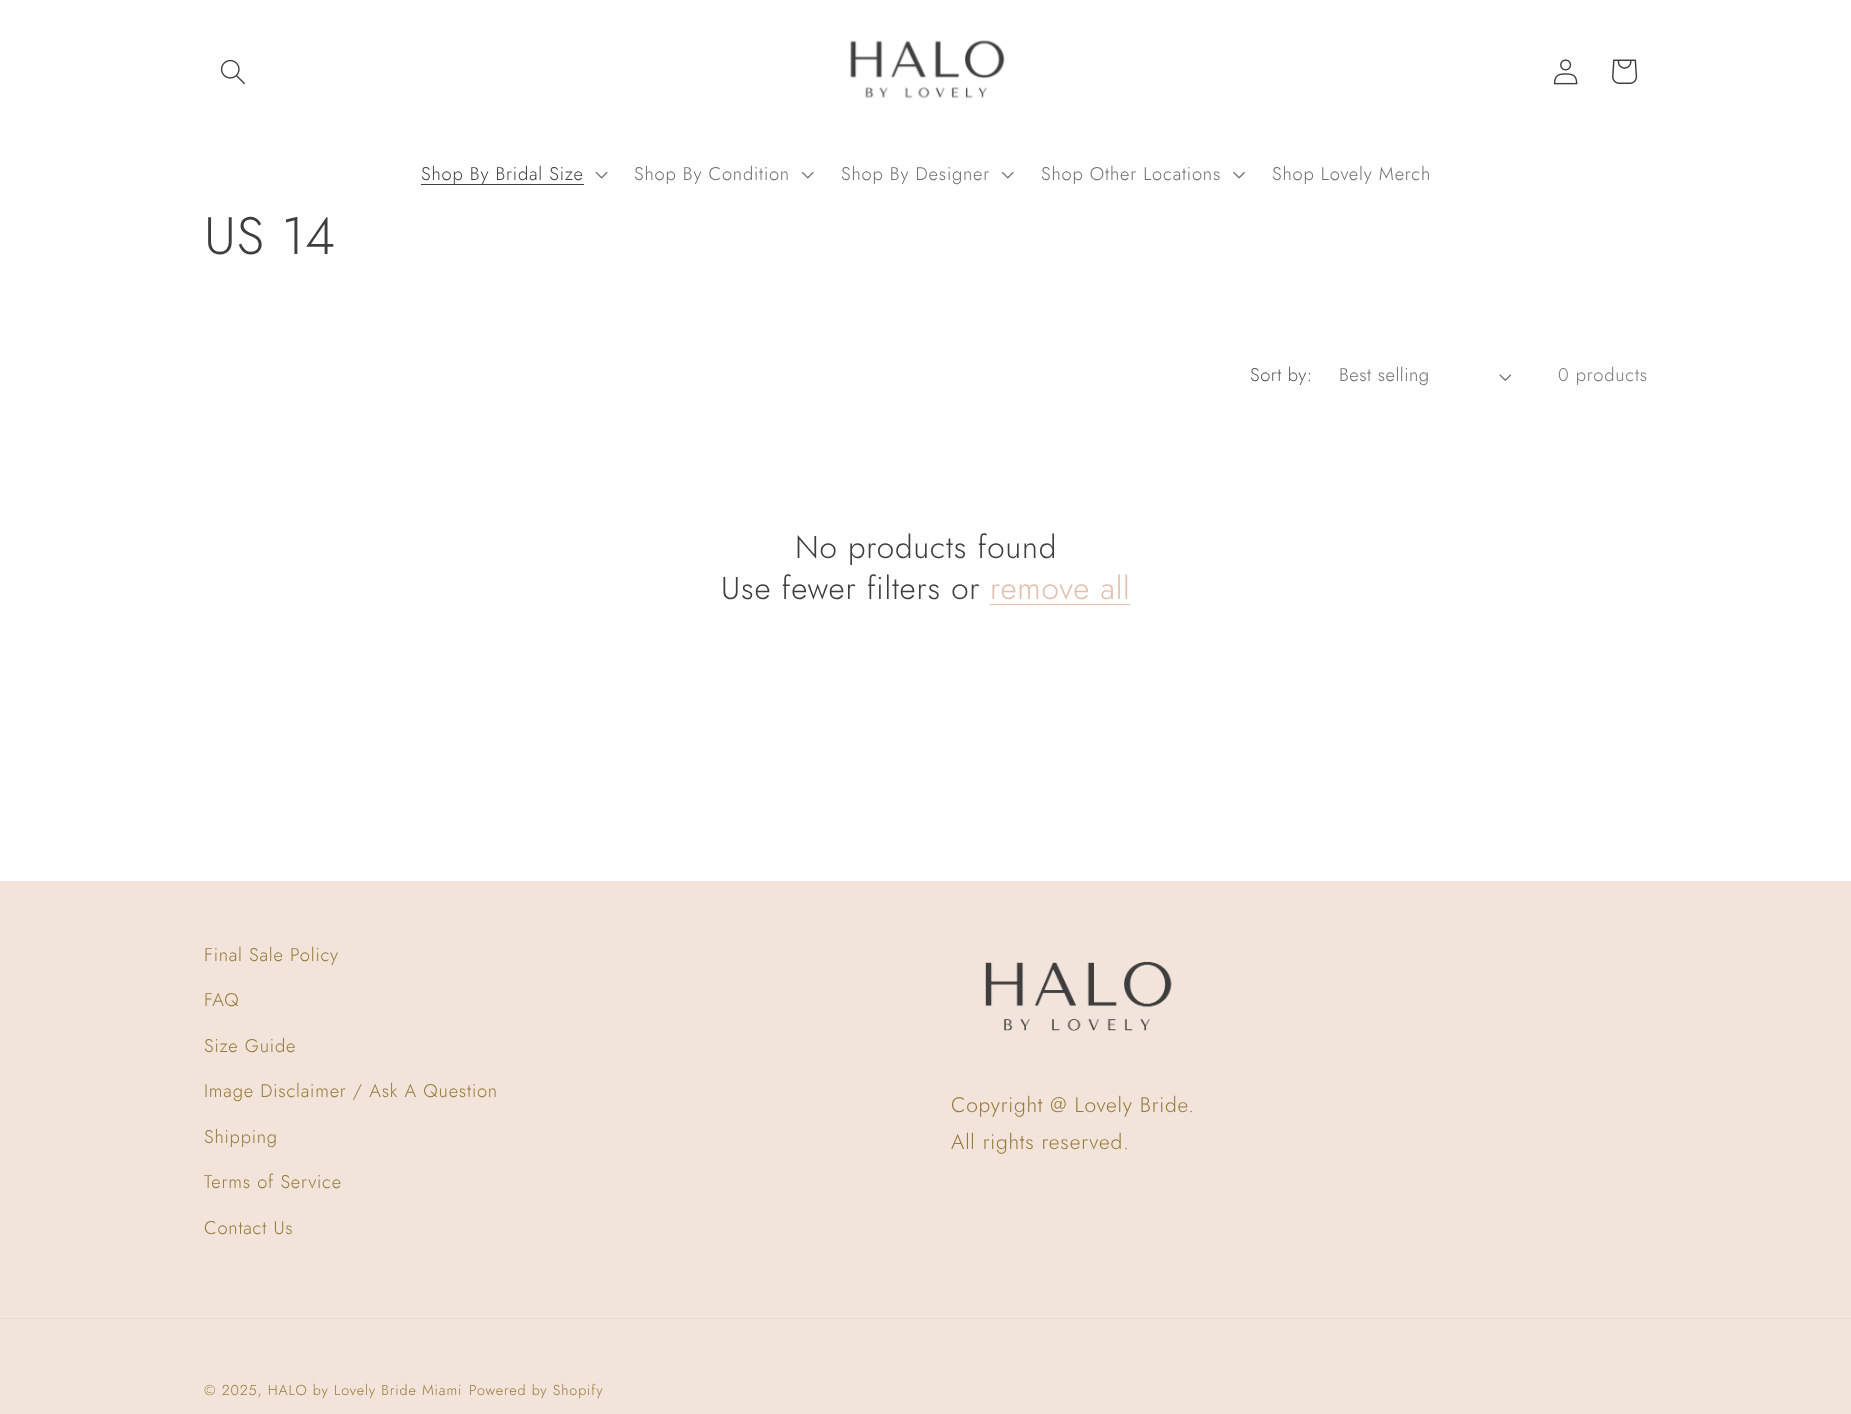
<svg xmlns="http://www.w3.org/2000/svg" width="1851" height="1414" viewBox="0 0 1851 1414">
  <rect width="100%" height="100%" fill="rgb(255,255,255)"/>
  <image x="220" y="59" width="25" height="26" href="pic1.png"/>
  <image x="850" y="40" width="155" height="59" href="pic2.png"/>
  <image x="1553" y="59" width="25" height="26" href="pic3.png"/>
  <image x="1612" y="59" width="26" height="25" href="pic4.png"/>
  <rect x="421" y="184" width="163" height="1" fill="rgb(62,62,62)"/>
  <text x="421" y="180" font-family="Jost" font-size="18.4" font-weight="300" letter-spacing="0.8" fill="rgb(62,62,62)">Shop By Bridal Size</text>
  <image x="595" y="172" width="13" height="7" href="pic5.png"/>
  <text x="634" y="180" font-family="Jost" font-size="18.4" font-weight="300" letter-spacing="0.8" fill="rgb(110,110,110)">Shop By Condition</text>
  <image x="802" y="172" width="12" height="7" href="pic6.png"/>
  <text x="841" y="180" font-family="Jost" font-size="18.4" font-weight="300" letter-spacing="0.8" fill="rgb(110,110,110)">Shop By Designer</text>
  <image x="1002" y="172" width="12" height="7" href="pic6.png"/>
  <text x="1041" y="180" font-family="Jost" font-size="18.4" font-weight="300" letter-spacing="0.8" fill="rgb(110,110,110)">Shop Other Locations</text>
  <image x="1233" y="172" width="12" height="7" href="pic7.png"/>
  <text x="1272" y="180" font-family="Jost" font-size="18.4" font-weight="300" letter-spacing="0.8" fill="rgb(110,110,110)">Shop Lovely Merch</text>
  <text x="204" y="254" font-family="Jost" font-size="52.5" font-weight="300" letter-spacing="0.8" fill="rgb(62,62,62)">US 14</text>
  <text x="1250" y="381" font-family="Jost" font-size="18.4" font-weight="300" letter-spacing="0.5" fill="rgb(91,91,91)">Sort by:</text>
  <text x="1339" y="381" font-family="Jost" font-size="18.4" font-weight="300" letter-spacing="0.5" fill="rgb(110,110,110)">Best selling</text>
  <image x="1499" y="374" width="12" height="7" href="pic8.png"/>
  <text x="1558" y="381" font-family="Jost" font-size="18.4" font-weight="300" letter-spacing="0.8" fill="rgb(120,120,120)">0 products</text>
  <g font-family="Jost" font-size="31.5" font-weight="300" letter-spacing="0.8" fill="rgb(62,62,62)">
    <text x="795" y="558">No products found</text>
    <text x="721" y="599">Use fewer filters or</text>
  </g>
  <text x="990" y="599" font-family="Jost" font-size="31.5" font-weight="300" letter-spacing="0.8" fill="rgb(225,191,174)">remove all</text>
  <rect x="990" y="604" width="140" height="1" fill="rgb(225,191,174)"/>
  <rect x="0" y="881" width="1851" height="533" fill="rgb(242,228,219)"/>
  <g font-family="Jost" font-size="18.4" font-weight="300" letter-spacing="0.8" fill="rgb(151,122,56)">
    <text x="204" y="961">Final Sale Policy</text>
    <text x="204" y="1006">FAQ</text>
    <text x="204" y="1052">Size Guide</text>
    <text x="204" y="1097">Image Disclaimer / Ask A Question</text>
    <text x="204" y="1143">Shipping</text>
    <text x="204" y="1188">Terms of Service</text>
    <text x="204" y="1234">Contact Us</text>
  </g>
  <image x="985" y="961" width="187" height="70" href="pic9.png"/>
  <g font-family="Jost" font-size="21" font-weight="300" letter-spacing="0.8" fill="rgb(151,122,56)">
    <text>
      <tspan x="951" y="1112">Copyright @ Lovely Bride.</tspan>
      <tspan x="951" y="1149">All rights reserved.</tspan>
    </text>
  </g>
  <rect x="0" y="1318" width="1851" height="1" fill="rgb(232,217,202)"/>
  <g font-family="Jost" font-size="14.4" font-weight="300" letter-spacing="0.9" fill="rgb(151,122,56)">
    <text x="204" y="1395">© 2025, HALO by Lovely Bride Miami</text>
    <text x="469" y="1395">Powered by Shopify</text>
  </g>
</svg>
